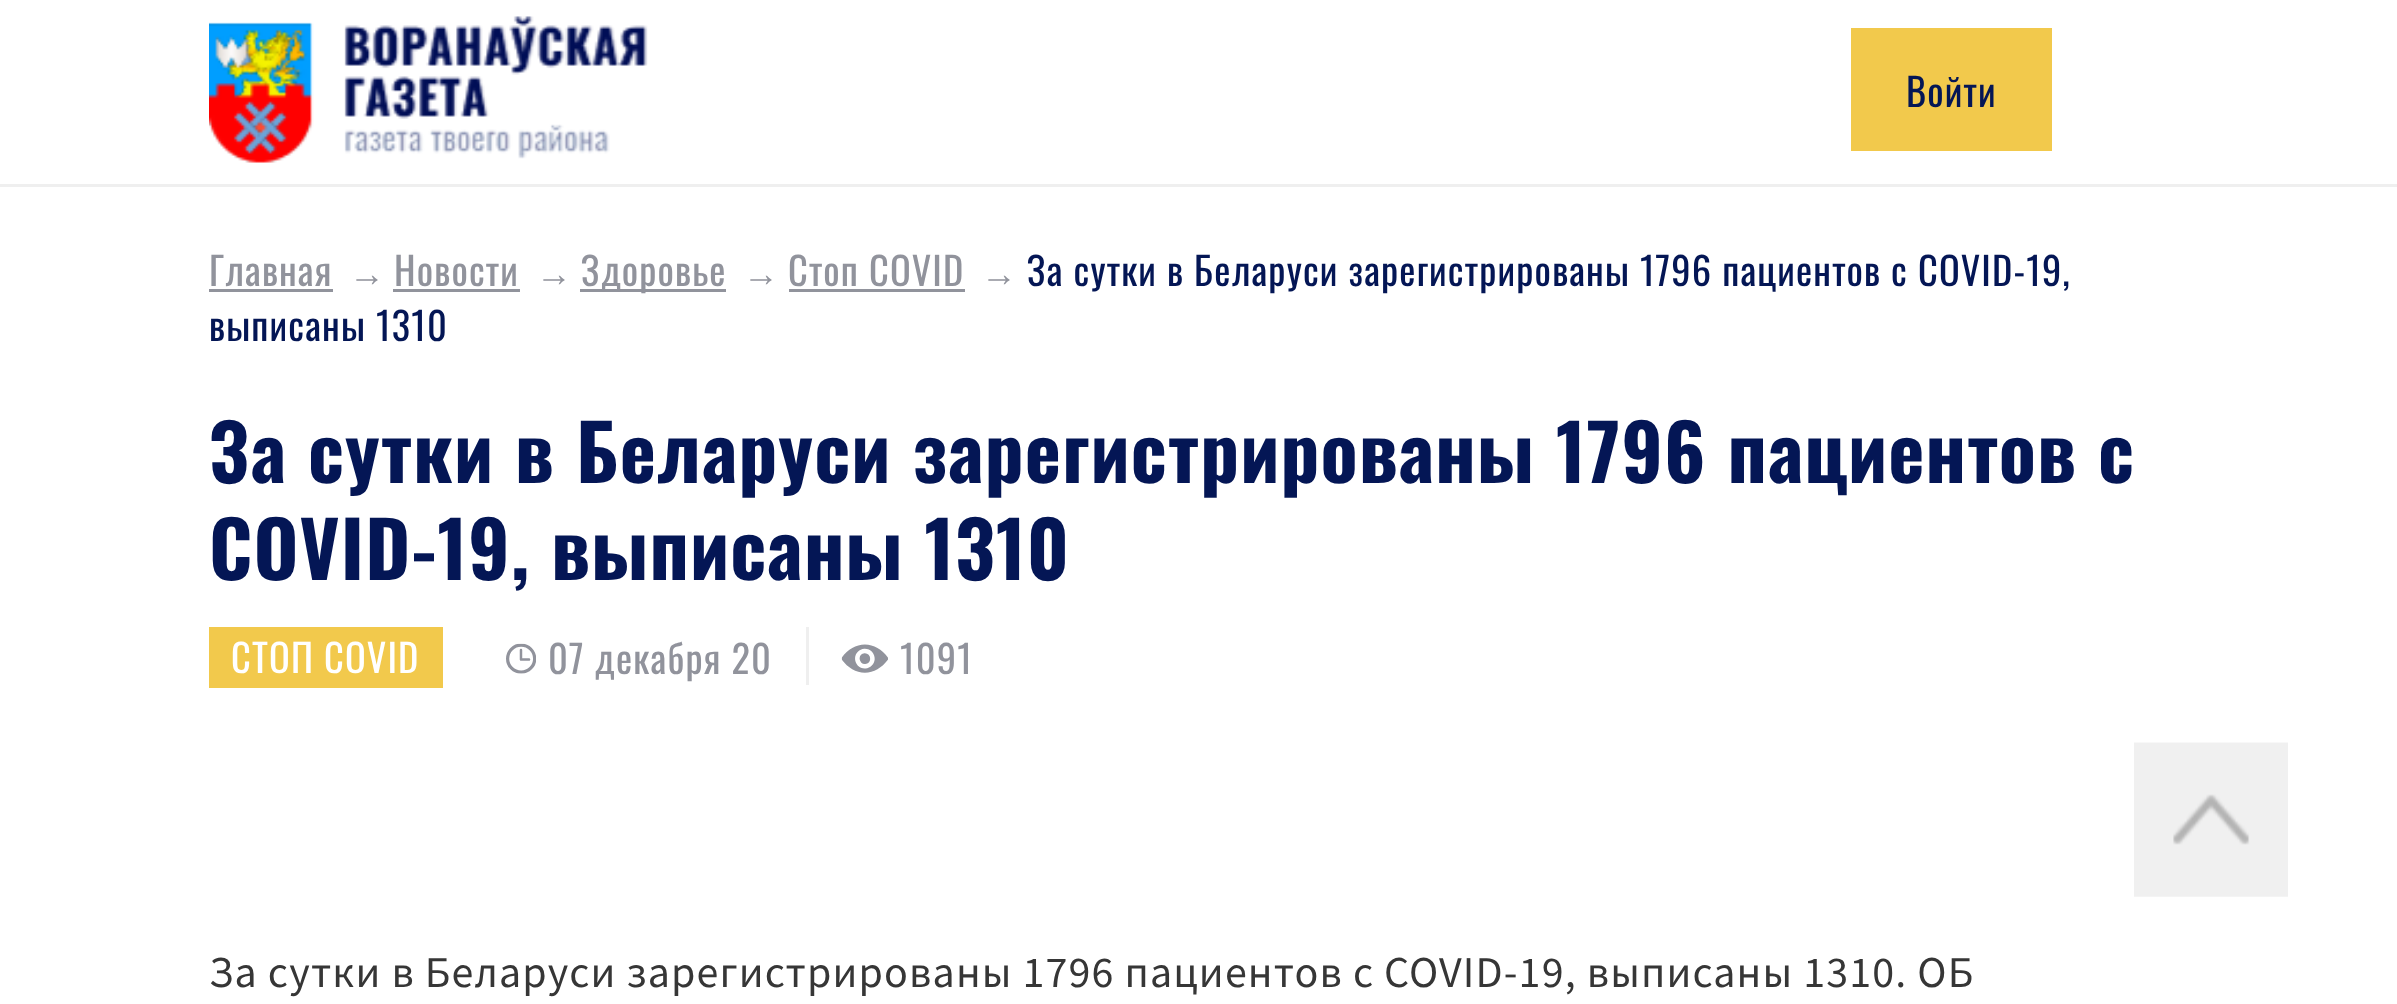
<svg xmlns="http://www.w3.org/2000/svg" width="2397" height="1004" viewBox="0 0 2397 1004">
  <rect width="100%" height="100%" fill="rgb(255,255,255)"/>
  <rect x="0" y="184" width="2397" height="3" fill="rgb(239,239,239)"/>
  <image x="209" y="16" width="439" height="147" href="pic1.png"/>
  <rect x="1851" y="28" width="201" height="123" fill="rgb(242,201,76)"/>
  <text x="1906" y="107" font-family="Oswald" font-size="38.5" letter-spacing="1.15" fill="rgb(4,22,85)">Войти</text>
  <text x="209" y="286" font-family="Oswald" font-size="38.5" letter-spacing="1.15" fill="rgb(145,147,156)">Главная</text>
  <rect x="209" y="289" width="124" height="3" fill="rgb(145,147,156)"/>
  <text x="349" y="286" font-family="Liberation Sans" font-size="36" letter-spacing="1.15" fill="rgb(145,147,156)">→</text>
  <text x="394" y="286" font-family="Oswald" font-size="38.5" letter-spacing="1.15" fill="rgb(145,147,156)">Новости</text>
  <rect x="393" y="289" width="127" height="3" fill="rgb(145,147,156)"/>
  <text x="536" y="286" font-family="Liberation Sans" font-size="36" letter-spacing="1.15" fill="rgb(145,147,156)">→</text>
  <rect x="580" y="289" width="146" height="3" fill="rgb(145,147,156)"/>
  <text x="581" y="286" font-family="Oswald" font-size="38.5" letter-spacing="1.15" fill="rgb(145,147,156)">Здоровье</text>
  <text x="743" y="286" font-family="Liberation Sans" font-size="36" letter-spacing="1.15" fill="rgb(145,147,156)">→</text>
  <text x="788" y="286" font-family="Oswald" font-size="38.5" letter-spacing="1.15" fill="rgb(145,147,156)">Стоп COVID</text>
  <rect x="789" y="289" width="176" height="3" fill="rgb(145,147,156)"/>
  <text x="981" y="286" font-family="Liberation Sans" font-size="36" letter-spacing="1.15" fill="rgb(145,147,156)">→</text>
  <g font-family="Oswald" font-size="38.5" letter-spacing="1.15" fill="rgb(4,22,85)">
    <text x="1027" y="286">За сутки в Беларуси зарегистрированы 1796 пациентов с COVID-19,</text>
    <text x="209" y="341">выписаны 1310</text>
  </g>
  <g font-family="Oswald" font-size="77" font-weight="bold" letter-spacing="1.15" fill="rgb(4,22,85)">
    <text>
      <tspan x="209" y="483">За сутки в Беларуси зарегистрированы 1796 пациентов с</tspan>
      <tspan x="209" y="580">COVID-19, выписаны 1310</tspan>
    </text>
  </g>
  <rect x="209" y="627" width="234" height="61" fill="rgb(242,201,76)"/>
  <text x="231" y="673" font-family="Oswald" font-size="38.5" letter-spacing="1.15" fill="rgb(255,255,255)">СТОП COVID</text>
  <rect x="806" y="627" width="3" height="58" fill="rgb(239,239,239)"/>
  <image x="506" y="643" width="30" height="31" href="pic2.png"/>
  <text x="548" y="674" font-family="Oswald" font-size="38.5" letter-spacing="1.15" fill="rgb(145,147,156)">07 декабря 20</text>
  <image x="841" y="644" width="47" height="29" href="pic3.png"/>
  <text x="900" y="674" font-family="Oswald" font-size="38.5" letter-spacing="1.15" fill="rgb(145,147,156)">1091</text>
  <text x="209" y="987" font-family="Source Sans Pro" font-size="44" letter-spacing="1.15" fill="rgb(54,54,54)">За сутки в Беларуси зарегистрированы 1796 пациентов с COVID-19, выписаны 1310. ОБ</text>
  <rect x="2134" y="743" width="154" height="154" fill="rgb(250,250,250)"/>
  <image x="2134" y="742" width="154" height="155" href="pic4.png"/>
</svg>
